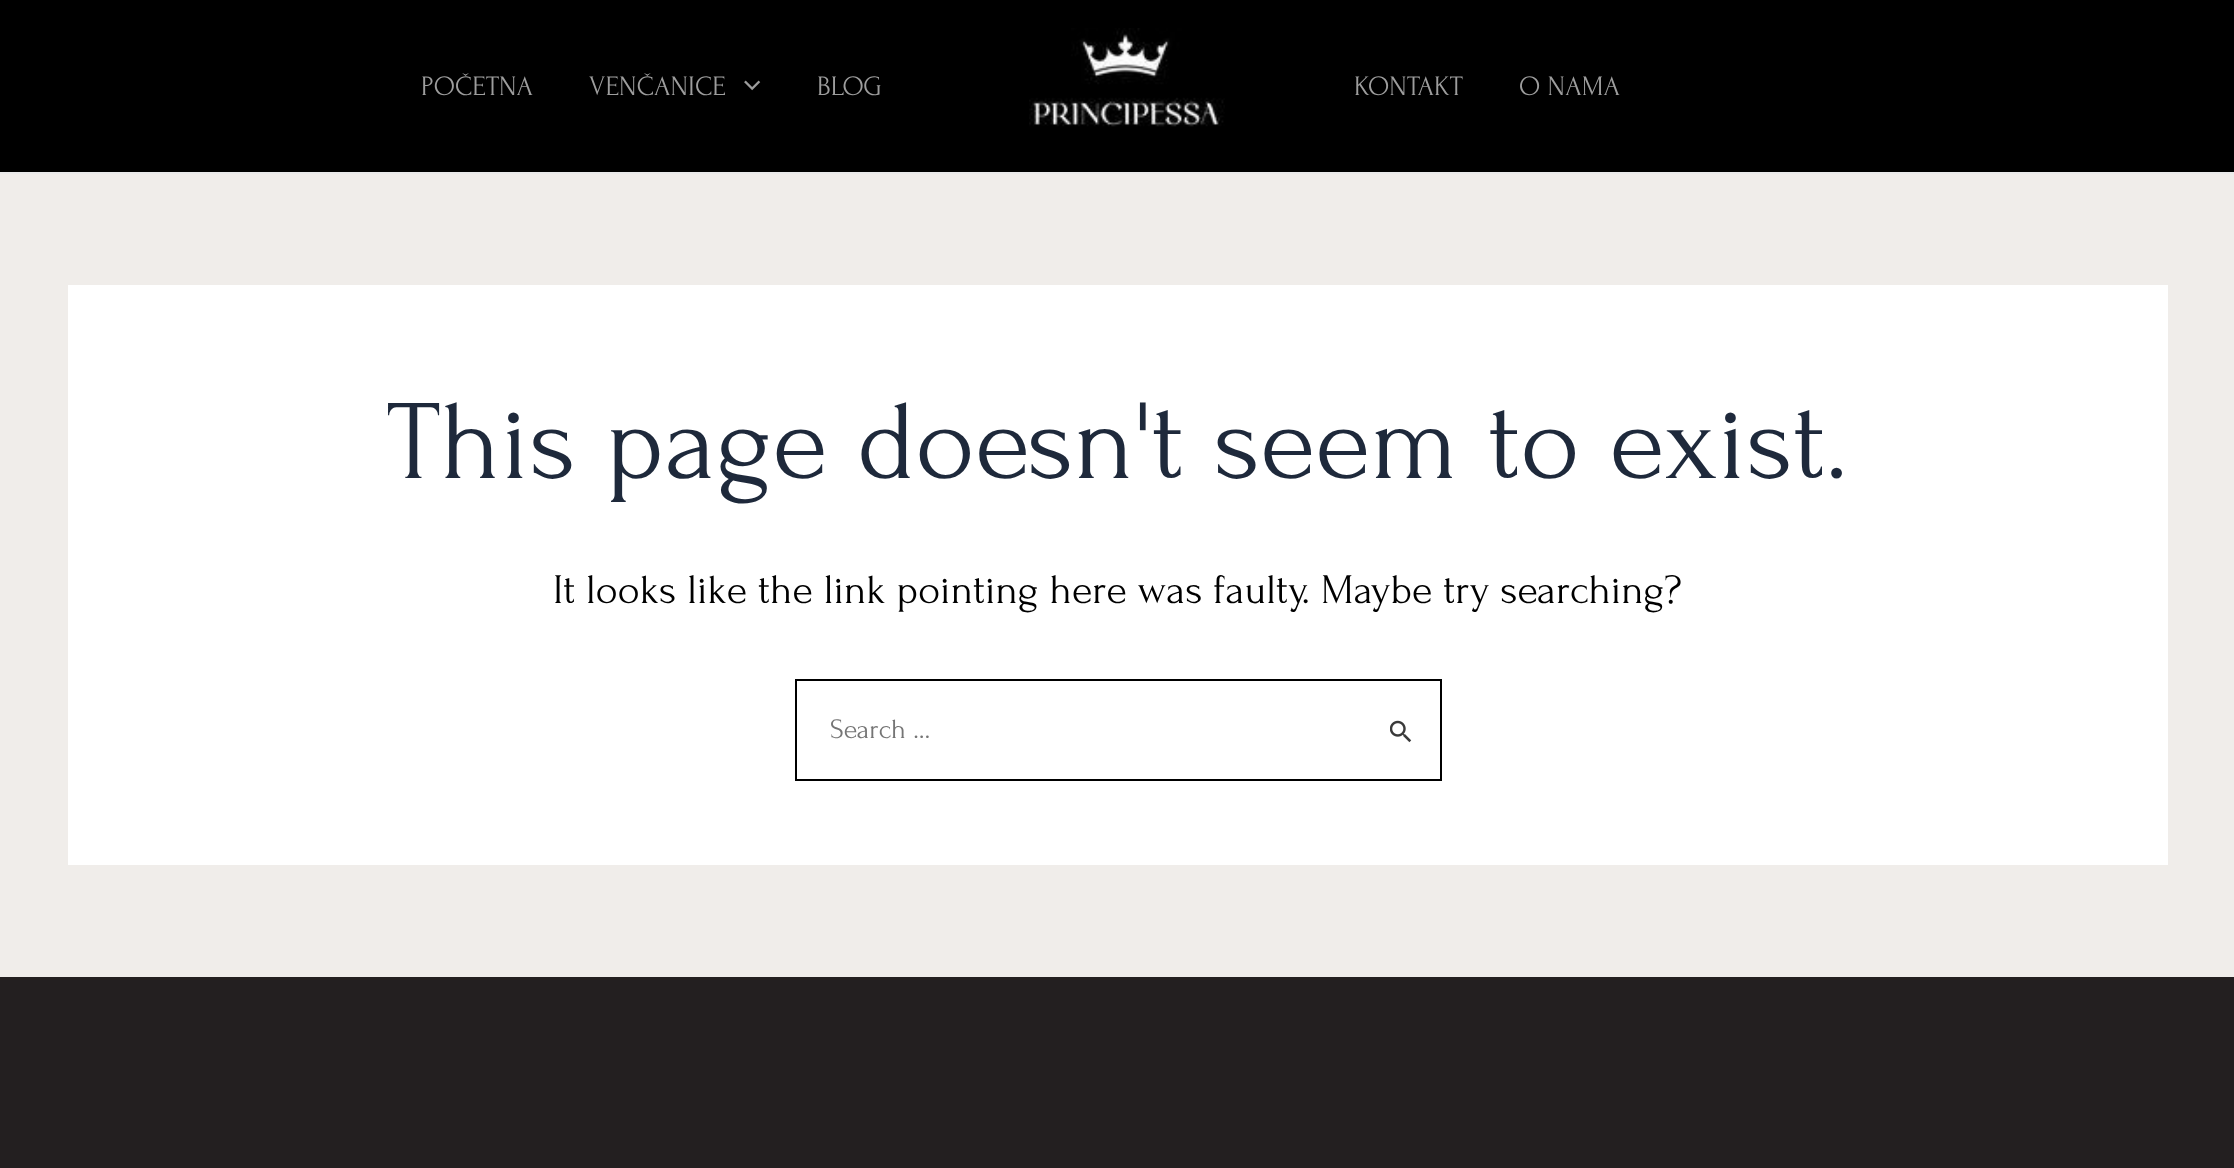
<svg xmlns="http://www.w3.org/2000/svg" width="2234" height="1168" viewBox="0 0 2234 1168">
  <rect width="100%" height="100%" fill="rgb(240,237,234)"/>
  <rect x="0" y="0" width="2234" height="172" fill="rgb(0,0,0)"/>
  <rect x="0" y="172" width="2234" height="2" fill="rgb(234,234,234)"/>
  <g font-family="Forum" font-size="28" fill="rgb(157,157,157)">
    <text x="421" y="95">POČETNA</text>
    <text x="589" y="95">VENČANICE</text>
  </g>
  <image x="744" y="80" width="17" height="11" href="pic1.png"/>
  <text x="817" y="95" font-family="Forum" font-size="28" fill="rgb(157,157,157)">BLOG</text>
  <image x="1029" y="28" width="196" height="99" href="pic2.png"/>
  <g font-family="Forum" font-size="28" fill="rgb(157,157,157)">
    <text x="1354" y="95">KONTAKT</text>
    <text x="1519" y="95">O NAMA</text>
  </g>
  <rect x="68" y="285" width="2100" height="580" fill="rgb(255,255,255)"/>
  <text x="387" y="478" font-family="Forum" font-size="113.75" fill="rgb(30,41,59)">This page doesn't seem to exist.</text>
  <text x="553" y="603" font-family="Forum" font-size="42" fill="rgb(0,0,0)">It looks like the link pointing here was faulty. Maybe try searching?</text>
  <rect x="796" y="680" width="645" height="100" fill="none" stroke="rgb(0,0,0)" stroke-width="2"/>
  <text x="830" y="738" font-family="Forum" font-size="28" fill="rgb(117,117,117)">Search …</text>
  <image x="1390" y="720" width="22" height="23" href="pic3.png"/>
  <rect x="0" y="977" width="2234" height="191" fill="rgb(35,31,32)"/>
</svg>
